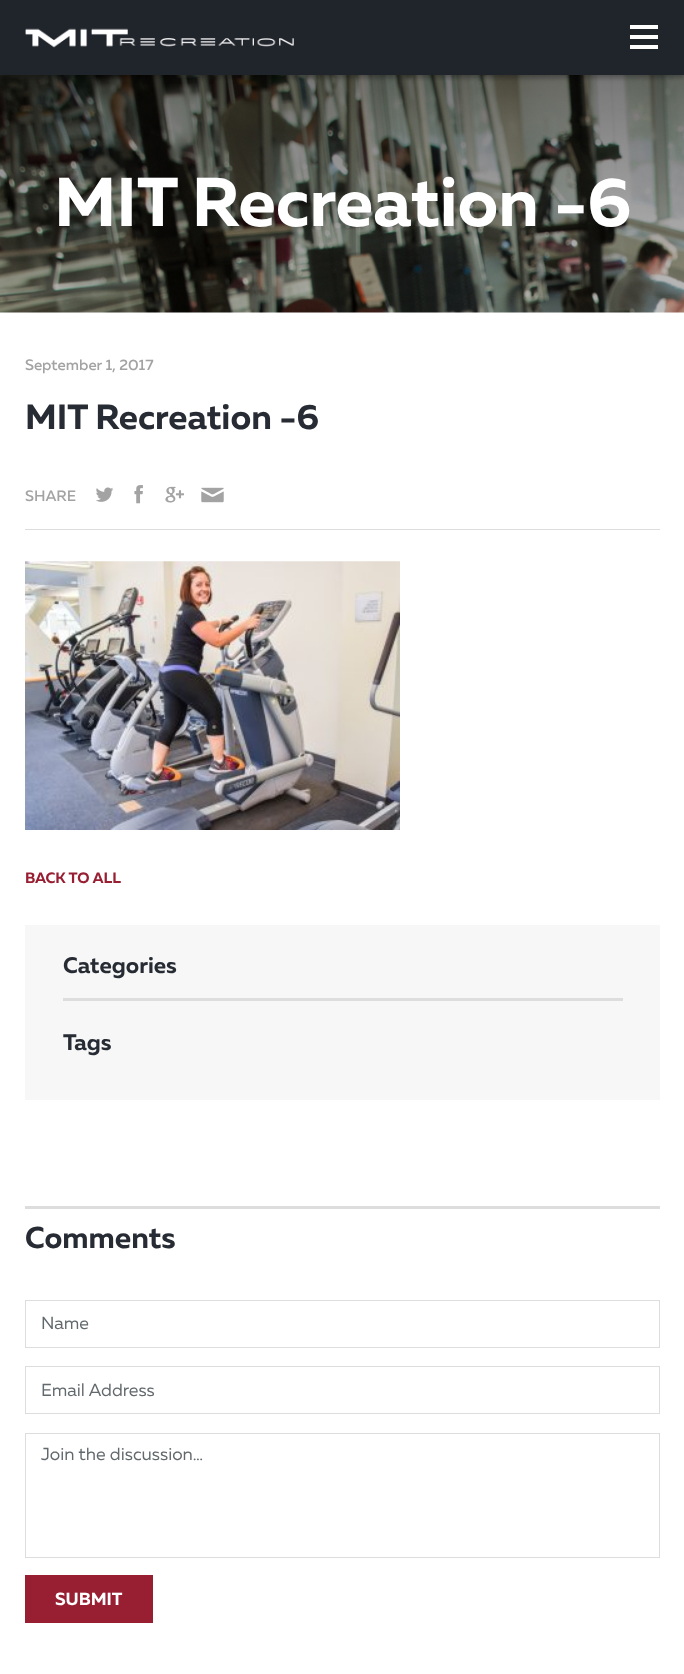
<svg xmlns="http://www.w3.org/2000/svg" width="684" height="1674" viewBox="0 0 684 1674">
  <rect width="100%" height="100%" fill="rgb(255,255,255)"/>
  <image x="0" y="75" width="684" height="238" href="pic2.png"/>
  <rect x="0" y="3" width="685" height="75" fill="rgba(0,0,0,0.3)" filter="blur(2.5px)"/>
  <rect x="0" y="0" width="684" height="75" fill="rgb(32,36,43)"/>
  <image x="25" y="28" width="269" height="20" href="pic1.png"/>
  <rect x="630" y="35" width="28" height="4" fill="rgb(255,255,255)"/>
  <rect x="630" y="25" width="28" height="4" fill="rgb(255,255,255)"/>
  <rect x="630" y="45" width="28" height="4" fill="rgb(255,255,255)"/>
  <text x="54" y="226" font-family="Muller" font-size="68.75" font-weight="bold" fill="rgb(255,255,255)">MIT Recreation -6</text>
  <rect x="25" y="529" width="635" height="1" fill="rgb(221,221,221)"/>
  <text x="25" y="370" font-family="Muller" font-size="15" font-weight="500" fill="rgb(163,163,163)">September 1, 2017</text>
  <text x="25" y="429" font-family="Muller" font-size="35" font-weight="bold" fill="rgb(39,43,51)">MIT Recreation -6</text>
  <text x="25" y="501" font-family="Muller" font-size="15" font-weight="500" fill="rgb(163,163,163)">SHARE</text>
  <image x="96" y="487" width="18" height="15" href="pic3.png"/>
  <image x="134" y="485" width="9" height="19" href="pic4.png"/>
  <image x="165" y="486" width="19" height="17" href="pic5.png"/>
  <image x="201" y="487" width="23" height="16" href="pic6.png"/>
  <image x="25" y="561" width="375" height="269" href="pic7.png"/>
  <text x="25" y="883" font-family="Muller" font-size="15" font-weight="bold" fill="rgb(152,30,50)">BACK TO ALL</text>
  <rect x="25" y="925" width="635" height="175" fill="rgb(247,247,247)"/>
  <text x="63" y="973" font-family="Muller" font-size="22.5" font-weight="bold" fill="rgb(39,43,51)">Categories</text>
  <rect x="63" y="998" width="560" height="3" fill="rgb(221,221,221)"/>
  <text x="63" y="1050" font-family="Muller" font-size="22.5" font-weight="bold" fill="rgb(39,43,51)">Tags</text>
  <rect x="25" y="1206" width="635" height="3" fill="rgb(221,221,221)"/>
  <text x="25" y="1248" font-family="Muller" font-size="30" font-weight="bold" fill="rgb(39,43,51)">Comments</text>
  <rect x="25.5" y="1300.5" width="634" height="47" fill="none" stroke="rgb(221,221,221)"/>
  <text x="41" y="1329" font-family="Muller" font-size="17.5" fill="rgb(98,105,109)">Name</text>
  <rect x="25.5" y="1366.5" width="634" height="47" fill="none" stroke="rgb(221,221,221)"/>
  <text x="41" y="1396" font-family="Muller" font-size="17.5" fill="rgb(98,105,109)">Email Address</text>
  <rect x="25.5" y="1433.5" width="634" height="124" fill="none" stroke="rgb(221,221,221)"/>
  <text x="41" y="1460" font-family="Muller" font-size="17.5" fill="rgb(98,105,109)">Join the discussion…</text>
  <rect x="25" y="1575" width="128" height="48" fill="rgb(152,30,50)"/>
  <text x="55" y="1605" font-family="Muller" font-size="17.5" font-weight="bold" fill="rgb(255,255,255)">SUBMIT</text>
</svg>
